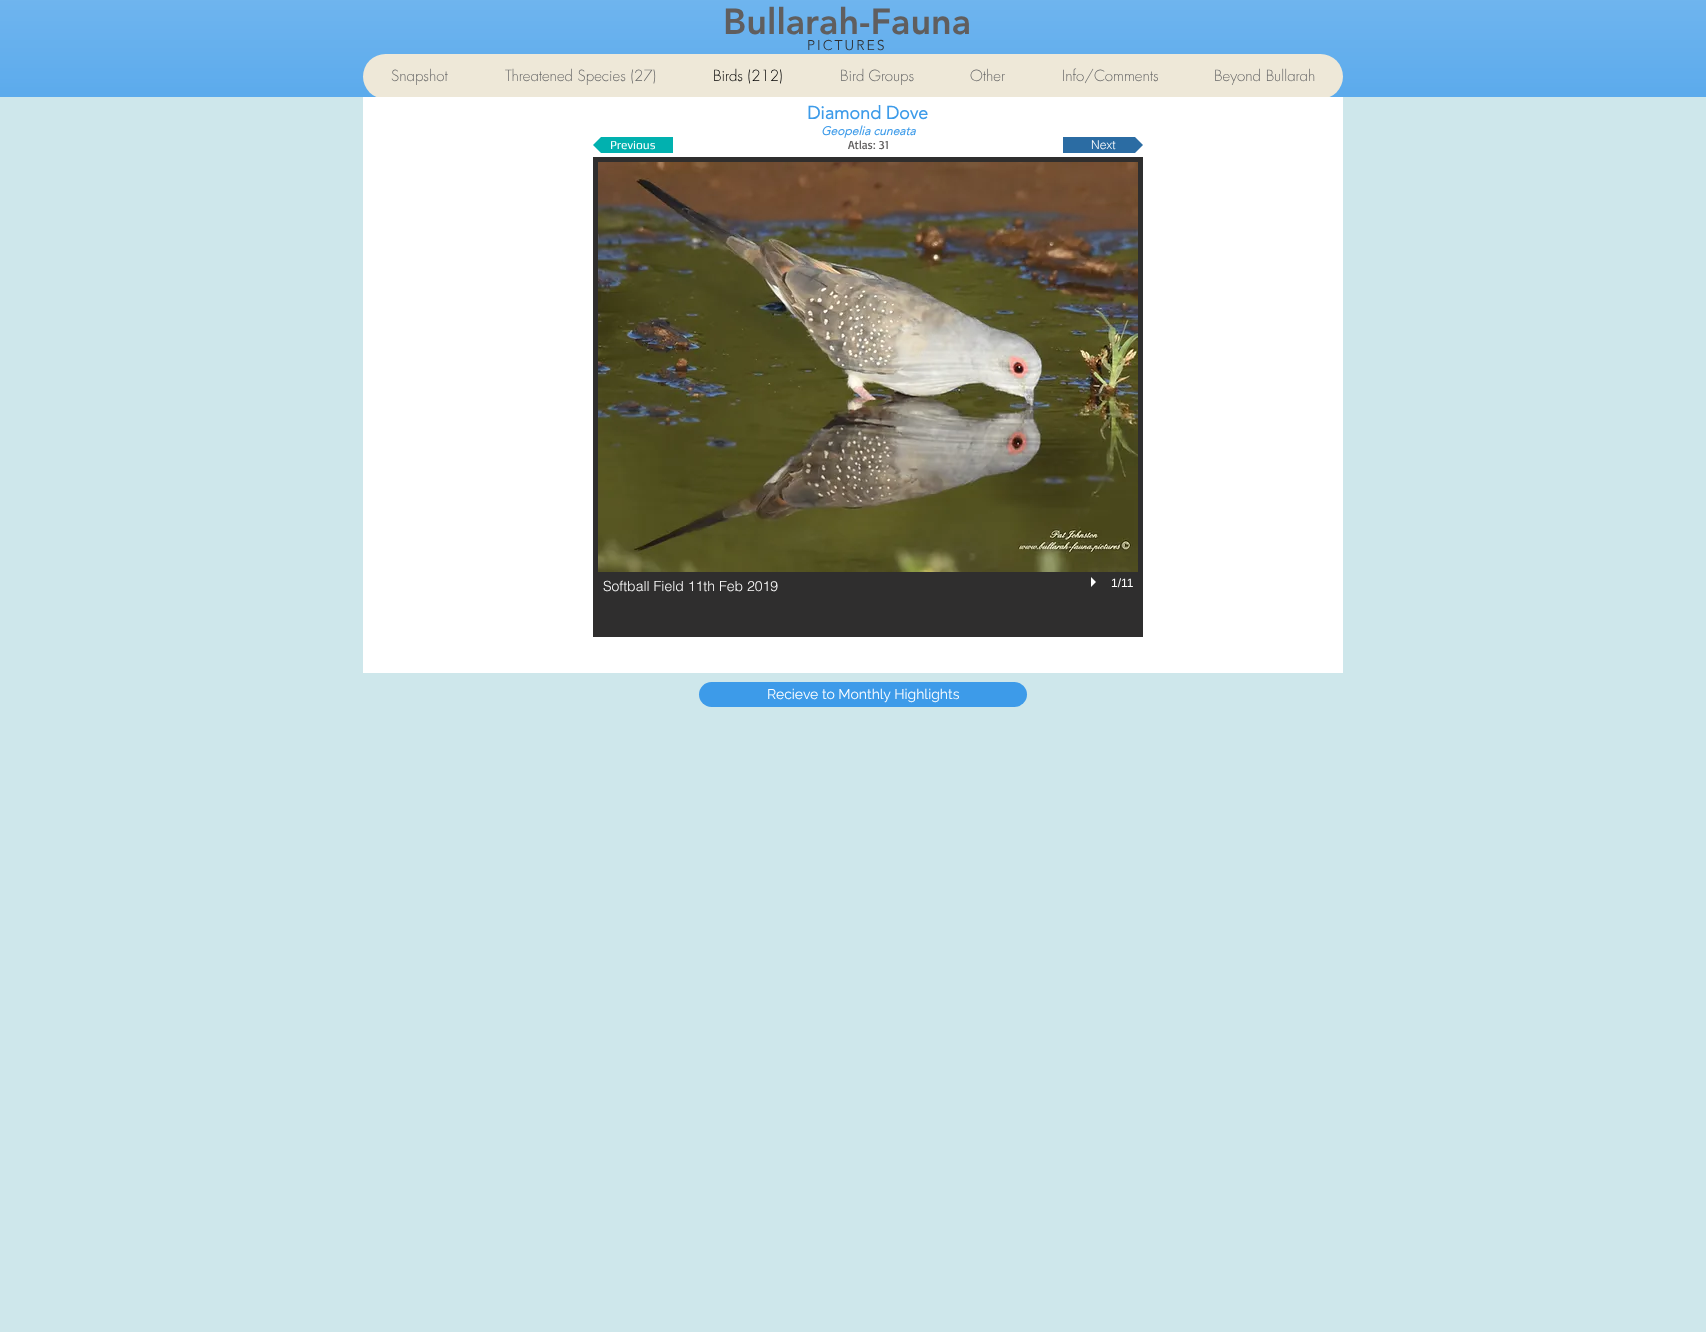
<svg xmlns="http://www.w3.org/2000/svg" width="1706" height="1332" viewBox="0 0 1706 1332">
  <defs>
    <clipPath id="clip1"><rect x="593" y="137" width="80" height="16"/></clipPath>
    <clipPath id="clip2"><rect x="1063" y="137" width="80" height="16"/></clipPath>
  </defs>
  <rect width="100%" height="100%" fill="rgb(206,231,235)"/>
  <rect x="0" y="0" width="1706" height="97" fill="rgb(61,155,233)"/>
  <image x="0" y="0" width="1706" height="97" href="pic1.png"/>
  <text x="723" y="34" font-family="'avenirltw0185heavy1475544'" font-size="36" font-weight="900" fill="rgb(96,94,94)">Bullarah-Fauna</text>
  <text x="807" y="50" font-family="'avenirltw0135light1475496'" font-size="14" font-weight="300" letter-spacing="2" fill="rgb(47,46,46)">PICTURES</text>
  <rect x="363" y="54" width="980" height="45" rx="22.5" fill="rgb(238,232,216)"/>
  <g font-family="futura" font-size="15" font-weight="300" fill="rgb(105,105,105)">
    <text x="391" y="81">Snapshot</text>
    <text x="505" y="81">Threatened Species (27)</text>
  </g>
  <text x="713" y="81" font-family="futura" font-size="15" font-weight="300" fill="rgb(0,0,0)">Birds (212)</text>
  <g font-family="futura" font-size="15" font-weight="300" fill="rgb(105,105,105)">
    <text x="840" y="81">Bird Groups</text>
    <text x="970" y="81">Other</text>
    <text x="1062" y="81">Info/Comments</text>
    <text x="1214" y="81">Beyond Bullarah</text>
  </g>
  <rect x="363" y="97" width="980" height="576" fill="rgb(255,255,255)"/>
  <text x="807" y="119" font-family="'avenirltw0135light1475496'" font-size="18" font-weight="bold" fill="rgb(61,155,233)">Diamond Dove</text>
  <text x="821" y="135" font-family="'avenirltw0135light1475496'" font-size="12" font-weight="bold" font-style="italic" fill="rgb(61,155,233)">Geopelia cuneata</text>
  <g clip-path="url(#clip1)">
    <path d="M643 145H593L643 95ZM593 145H643V195Z" fill="rgb(1,177,175)"/>
  </g>
  <rect x="643" y="137" width="30" height="16" fill="rgb(1,177,175)"/>
  <text x="610" y="149" font-family="Play" font-size="12" fill="rgb(255,255,255)">Previous</text>
  <text x="848" y="149" font-family="Basic" font-size="12" fill="rgb(96,94,94)">Atlas: 31</text>
  <rect x="1063" y="137" width="30" height="16" fill="rgb(43,108,163)"/>
  <g clip-path="url(#clip2)">
    <path d="M1143 145H1093V95ZM1093 145H1143L1093 195Z" fill="rgb(43,108,163)"/>
  </g>
  <text x="1091" y="149" font-family="helvetica" font-size="12" font-weight="300" fill="rgb(255,255,255)">Next</text>
  <rect x="593" y="157" width="550" height="480" fill="rgb(47,46,46)"/>
  <image x="598" y="162" width="540" height="410" href="pic2.png"/>
  <text x="603" y="591" font-family="helvetica" font-size="14" font-weight="300" fill="rgb(255,255,255)">Softball Field 11th Feb 2019</text>
  <path d="M1091 587V577L1096 582Z" fill="rgb(255,255,255)"/>
  <text x="1111" y="587" font-family="Liberation Sans" font-size="12" fill="rgb(255,255,255)">1/11</text>
  <rect x="699" y="682" width="328" height="25" rx="12.5" fill="rgb(61,155,233)"/>
  <text x="767" y="699" font-family="Raleway" font-size="14" fill="rgb(255,255,255)">Recieve to Monthly Highlights</text>
</svg>
